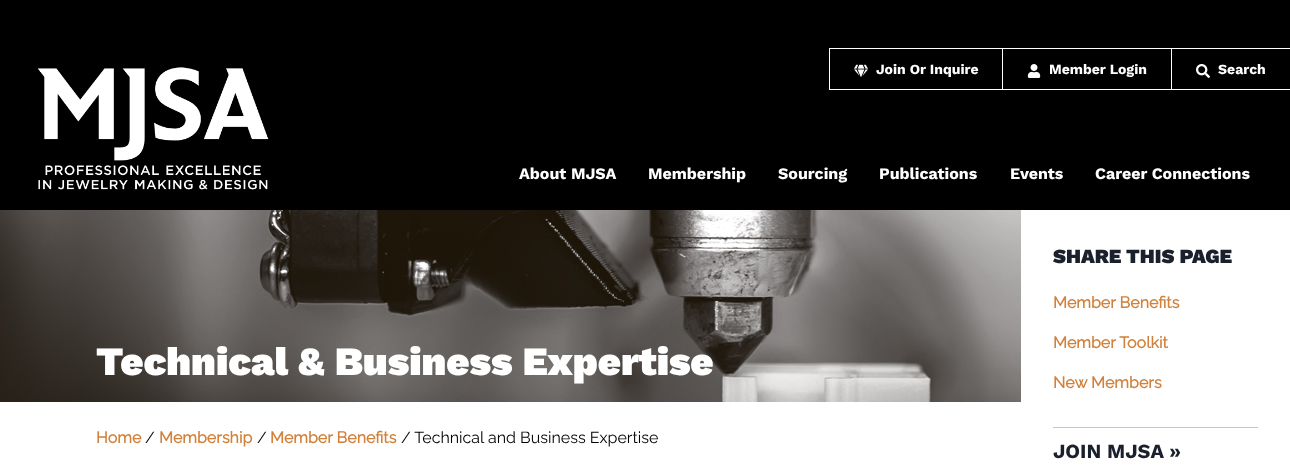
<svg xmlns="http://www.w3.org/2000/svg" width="1290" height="466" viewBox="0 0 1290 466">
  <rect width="100%" height="100%" fill="rgb(255,255,255)"/>
  <rect x="0" y="0" width="1290" height="210" fill="rgb(0,0,0)"/>
  <image x="37" y="67" width="232" height="123" href="pic1.png"/>
  <rect x="829" y="48" width="461" height="1" fill="rgb(255,255,255)"/>
  <rect x="829" y="89" width="461" height="1" fill="rgb(255,255,255)"/>
  <rect x="829" y="48" width="1" height="42" fill="rgb(255,255,255)"/>
  <image x="854" y="64" width="14" height="13" href="pic2.png"/>
  <text x="876" y="74" font-family="Work Sans" font-size="14" font-weight="bold" fill="rgb(255,255,255)">Join Or Inquire</text>
  <rect x="1002" y="48" width="1" height="42" fill="rgb(255,255,255)"/>
  <image x="1027" y="64" width="14" height="14" href="pic3.png"/>
  <text x="1049" y="74" font-family="Work Sans" font-size="14" font-weight="bold" fill="rgb(255,255,255)">Member Login</text>
  <rect x="1171" y="48" width="1" height="42" fill="rgb(255,255,255)"/>
  <image x="1196" y="64" width="14" height="14" href="pic4.png"/>
  <text x="1218" y="74" font-family="Work Sans" font-size="14" font-weight="bold" fill="rgb(255,255,255)">Search</text>
  <g font-family="Work Sans" font-size="16" font-weight="bold" fill="rgb(255,255,255)">
    <text x="519" y="179">About MJSA</text>
    <text x="648" y="179">Membership</text>
    <text x="778" y="179">Sourcing</text>
    <text x="879" y="179">Publications</text>
    <text x="1010" y="179">Events</text>
    <text x="1095" y="179">Career Connections</text>
  </g>
  <image x="0" y="210" width="1021" height="192" href="pic5.png"/>
  <text x="96" y="375" font-family="Work Sans" font-size="40" font-weight="900" fill="rgb(255,255,255)">Technical &amp; Business Expertise</text>
  <text x="96" y="443" font-family="Raleway" font-size="16" font-weight="bold" fill="rgb(209,129,59)">Home</text>
  <text x="145" y="443" font-family="Raleway" font-size="16" fill="rgb(0,0,0)">/</text>
  <text x="159" y="443" font-family="Raleway" font-size="16" font-weight="bold" fill="rgb(209,129,59)">Membership</text>
  <text x="257" y="443" font-family="Raleway" font-size="16" fill="rgb(0,0,0)">/</text>
  <text x="270" y="443" font-family="Raleway" font-size="16" font-weight="bold" fill="rgb(209,129,59)">Member Benefits</text>
  <text x="401" y="443" font-family="Raleway" font-size="16" fill="rgb(0,0,0)">/ Technical and Business Expertise</text>
  <text x="1053" y="263" font-family="Work Sans" font-size="20" font-weight="900" fill="rgb(26,32,44)">SHARE THIS PAGE</text>
  <g font-family="Raleway" font-size="16" font-weight="bold" fill="rgb(209,129,59)">
    <text x="1053" y="308">Member Benefits</text>
    <text x="1053" y="348">Member Toolkit</text>
    <text x="1053" y="388">New Members</text>
  </g>
  <rect x="1053" y="427" width="205" height="1" fill="rgb(198,199,202)"/>
  <text x="1053" y="458" font-family="Work Sans" font-size="20" font-weight="bold" fill="rgb(26,32,44)">JOIN MJSA »</text>
</svg>
